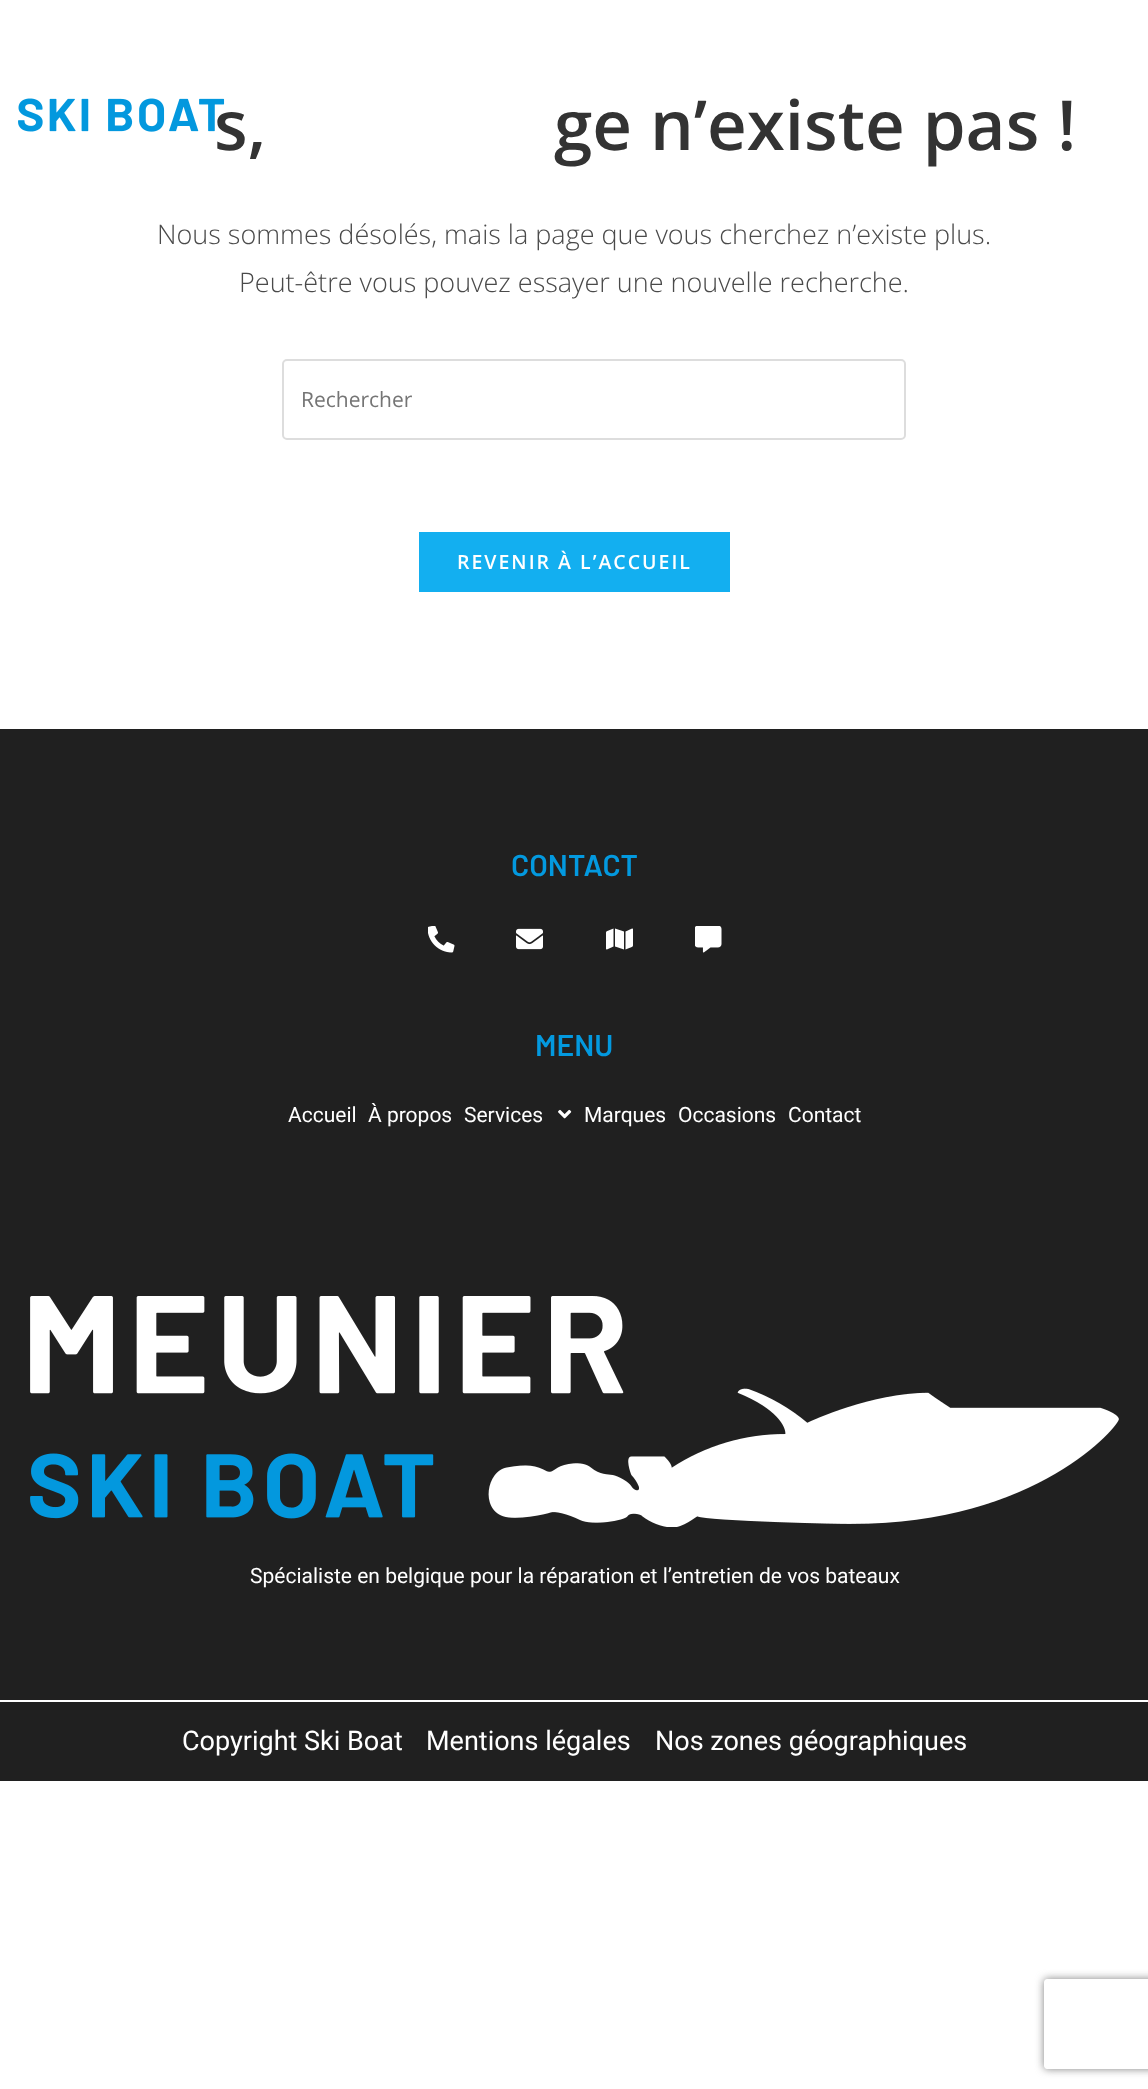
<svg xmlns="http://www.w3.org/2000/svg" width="1148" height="2089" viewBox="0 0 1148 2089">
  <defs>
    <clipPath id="clip1"><path d="M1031 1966H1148V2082H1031ZM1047 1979H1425C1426.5 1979 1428 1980.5 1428 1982V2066C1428 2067.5 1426.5 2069 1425 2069H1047C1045.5 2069 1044 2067.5 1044 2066V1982C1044 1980.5 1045.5 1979 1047 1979Z" clip-rule="evenodd"/></clipPath>
  </defs>
  <rect width="100%" height="100%" fill="rgb(255,255,255)"/>
  <text x="214" y="150" font-family="Open Sans" font-size="69" font-weight="600" fill="rgb(51,51,51)">s,</text>
  <image x="18" y="98" width="518" height="37" href="pic1.png"/>
  <text x="554" y="150" font-family="Open Sans" font-size="69" font-weight="600" fill="rgb(51,51,51)">ge n’existe pas !</text>
  <g font-family="Open Sans" font-size="27" font-weight="300" fill="rgb(74,74,74)">
    <text x="157" y="244">Nous sommes désolés, mais la page que vous cherchez n’existe plus.</text>
    <text x="239" y="292">Peut-être vous pouvez essayer une nouvelle recherche.</text>
  </g>
  <rect x="283" y="360" width="622" height="79" rx="4" fill="none" stroke="rgb(221,221,221)" stroke-width="2"/>
  <text x="301" y="407" font-family="Open Sans" font-size="21" fill="rgb(117,117,117)">Rechercher</text>
  <rect x="419" y="532" width="311" height="60" fill="rgb(19,175,240)"/>
  <text x="457" y="569" font-family="Open Sans" font-size="19.5" font-weight="600" letter-spacing="2" fill="rgb(255,255,255)">REVENIR À L’ACCUEIL</text>
  <rect x="0" y="729" width="1148" height="971" fill="rgb(32,32,32)"/>
  <text x="511" y="876" font-family="Barlow" font-size="30" font-weight="600" fill="rgb(3,153,223)">CONTACT</text>
  <image x="428" y="926" width="27" height="27" href="pic2.png"/>
  <image x="516" y="928" width="27" height="22" href="pic3.png"/>
  <image x="606" y="928" width="27" height="22" href="pic4.png"/>
  <image x="695" y="926" width="27" height="27" href="pic5.png"/>
  <text x="535" y="1056" font-family="Barlow" font-size="30" font-weight="600" fill="rgb(3,153,223)">MENU</text>
  <g font-family="Roboto" font-size="21" fill="rgb(255,255,255)">
    <text x="288" y="1122">Accueil</text>
    <text x="368" y="1122">À propos</text>
    <text x="464" y="1122">Services</text>
  </g>
  <image x="558" y="1109" width="14" height="10" href="pic6.png"/>
  <g font-family="Roboto" font-size="21" fill="rgb(255,255,255)">
    <text x="584" y="1122">Marques</text>
    <text x="678" y="1122">Occasions</text>
    <text x="788" y="1122">Contact</text>
  </g>
  <image x="30" y="1296" width="1089" height="231" href="pic7.png"/>
  <text x="250" y="1583" font-family="Roboto" font-size="21" fill="rgb(255,255,255)">Spécialiste en belgique pour la réparation et l’entretien de vos bateaux</text>
  <rect x="0" y="1702" width="1148" height="79" fill="rgb(32,32,32)"/>
  <g font-family="Roboto" font-size="27" fill="rgb(255,255,255)">
    <text x="182" y="1750">Copyright Ski Boat</text>
    <text x="426" y="1750">Mentions légales</text>
    <text x="655" y="1750">Nos zones géographiques</text>
  </g>
  <g clip-path="url(#clip1)">
    <rect x="1044" y="1979" width="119" height="90" rx="3" fill="rgb(128,128,128)" filter="blur(4px)"/>
  </g>
</svg>
